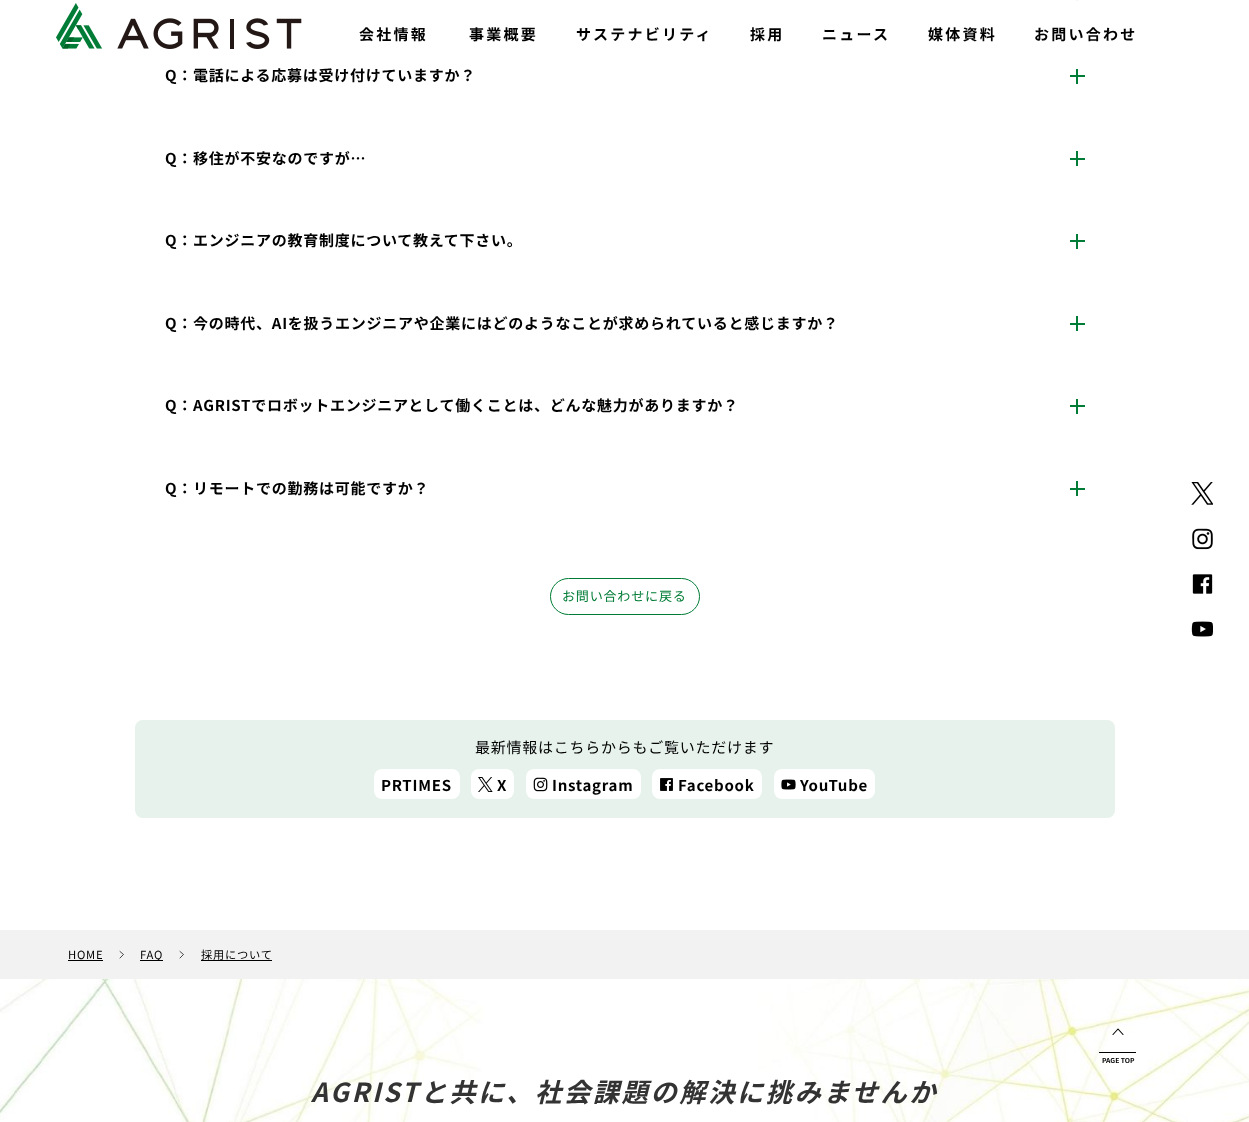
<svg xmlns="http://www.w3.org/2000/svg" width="1249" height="1122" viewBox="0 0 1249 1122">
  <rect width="100%" height="100%" fill="rgb(255,255,255)"/>
  <image x="56" y="3" width="246" height="46" href="pic1.png"/>
  <g font-family="Noto Sans JP" font-size="15" font-weight="bold" letter-spacing="2.25" fill="rgb(0,0,0)">
    <text x="359" y="40">会社情報</text>
    <text x="469" y="40">事業概要</text>
    <text x="576" y="40">サステナビリティ</text>
    <text x="750" y="40">採用</text>
    <text x="822" y="40">ニュース</text>
    <text x="928" y="40">媒体資料</text>
    <text x="1034" y="40">お問い合わせ</text>
  </g>
  <image x="1191" y="482" width="22" height="23" href="pic2.png"/>
  <image x="1192" y="528" width="21" height="22" href="pic3.png"/>
  <image x="1192" y="574" width="21" height="20" href="pic4.png"/>
  <image x="1191" y="621" width="22" height="16" href="pic5.png"/>
  <rect x="1076" y="0" width="2" height="1" fill="rgb(242,248,245)"/>
  <text x="165" y="81" font-family="Noto Sans JP" font-size="15" font-weight="bold" letter-spacing="0.75" fill="rgb(0,0,0)">Q：電話による応募は受け付けていますか？</text>
  <rect x="1070" y="75" width="15" height="2" fill="rgb(0,124,54)"/>
  <rect x="1076" y="69" width="2" height="15" fill="rgb(0,124,54)"/>
  <text x="165" y="164" font-family="Noto Sans JP" font-size="15" font-weight="bold" letter-spacing="0.75" fill="rgb(0,0,0)">Q：移住が不安なのですが…</text>
  <rect x="1070" y="158" width="15" height="2" fill="rgb(0,124,54)"/>
  <rect x="1076" y="151" width="2" height="15" fill="rgb(0,124,54)"/>
  <text x="165" y="246" font-family="Noto Sans JP" font-size="15" font-weight="bold" letter-spacing="0.75" fill="rgb(0,0,0)">Q：エンジニアの教育制度について教えて下さい。</text>
  <rect x="1070" y="240" width="15" height="2" fill="rgb(0,124,54)"/>
  <rect x="1076" y="234" width="2" height="15" fill="rgb(0,124,54)"/>
  <text x="165" y="329" font-family="Noto Sans JP" font-size="15" font-weight="bold" letter-spacing="0.75" fill="rgb(0,0,0)">Q：今の時代、AIを扱うエンジニアや企業にはどのようなことが求められていると感じますか？</text>
  <rect x="1070" y="323" width="15" height="2" fill="rgb(0,124,54)"/>
  <rect x="1076" y="316" width="2" height="15" fill="rgb(0,124,54)"/>
  <text x="165" y="411" font-family="Noto Sans JP" font-size="15" font-weight="bold" letter-spacing="0.75" fill="rgb(0,0,0)">Q：AGRISTでロボットエンジニアとして働くことは、どんな魅力がありますか？</text>
  <rect x="1070" y="405" width="15" height="2" fill="rgb(0,124,54)"/>
  <rect x="1076" y="399" width="2" height="15" fill="rgb(0,124,54)"/>
  <text x="165" y="494" font-family="Noto Sans JP" font-size="15" font-weight="bold" letter-spacing="0.75" fill="rgb(0,0,0)">Q：リモートでの勤務は可能ですか？</text>
  <rect x="1070" y="488" width="15" height="2" fill="rgb(0,124,54)"/>
  <rect x="1076" y="481" width="2" height="15" fill="rgb(0,124,54)"/>
  <rect x="550.5" y="578.5" width="149" height="36" rx="18" fill="none" stroke="rgb(0,124,54)"/>
  <text x="562" y="601" font-family="Noto Sans JP" font-size="13.1" letter-spacing="0.75" fill="rgb(0,124,54)">お問い合わせに戻る</text>
  <rect x="135" y="720" width="980" height="98" rx="8" fill="rgb(230,242,235)"/>
  <text x="475" y="753" font-family="Noto Sans JP" font-size="15" letter-spacing="0.75" fill="rgb(0,0,0)">最新情報はこちらからもご覧いただけます</text>
  <rect x="374" y="769" width="86" height="30" rx="8" fill="rgb(255,255,255)"/>
  <text x="381" y="791" font-family="Noto Sans JP" font-size="15" font-weight="bold" letter-spacing="0.75" fill="rgb(0,0,0)">PRTIMES</text>
  <rect x="471" y="769" width="43" height="30" rx="8" fill="rgb(255,255,255)"/>
  <image x="478" y="777" width="15" height="15" href="pic6.png"/>
  <text x="497" y="791" font-family="Noto Sans JP" font-size="15" font-weight="bold" letter-spacing="0.75" fill="rgb(0,0,0)">X</text>
  <rect x="526" y="769" width="115" height="30" rx="8" fill="rgb(255,255,255)"/>
  <image x="533" y="777" width="15" height="15" href="pic7.png"/>
  <text x="552" y="791" font-family="Noto Sans JP" font-size="15" font-weight="bold" letter-spacing="0.75" fill="rgb(0,0,0)">Instagram</text>
  <rect x="652" y="769" width="110" height="30" rx="8" fill="rgb(255,255,255)"/>
  <image x="660" y="778" width="13" height="13" href="pic8.png"/>
  <text x="678" y="791" font-family="Noto Sans JP" font-size="15" font-weight="bold" letter-spacing="0.75" fill="rgb(0,0,0)">Facebook</text>
  <rect x="774" y="769" width="101" height="30" rx="8" fill="rgb(255,255,255)"/>
  <image x="781" y="779" width="15" height="11" href="pic9.png"/>
  <text x="800" y="791" font-family="Noto Sans JP" font-size="15" font-weight="bold" letter-spacing="0.75" fill="rgb(0,0,0)">YouTube</text>
  <rect x="0" y="930" width="1249" height="49" fill="rgb(242,242,242)"/>
  <text x="68" y="959" font-family="Noto Sans JP" font-size="11.25" letter-spacing="0.75" fill="rgb(0,0,0)">HOME</text>
  <rect x="68" y="960" width="35" height="1" fill="rgb(0,0,0)"/>
  <path d="M120 951.5L123.5 954.5L120 958" fill="none" stroke="rgb(0,0,0)" stroke-width="0.7" stroke-linecap="round" stroke-linejoin="round"/>
  <rect x="140" y="960" width="23" height="1" fill="rgb(0,0,0)"/>
  <text x="140" y="959" font-family="Noto Sans JP" font-size="11.25" letter-spacing="0.75" fill="rgb(0,0,0)">FAQ</text>
  <path d="M180 951.5L183.5 954.5L180 958" fill="none" stroke="rgb(0,0,0)" stroke-width="0.7" stroke-linecap="round" stroke-linejoin="round"/>
  <text x="201" y="959" font-family="Noto Sans JP" font-size="11.25" letter-spacing="0.75" fill="rgb(0,0,0)">採用について</text>
  <rect x="201" y="960" width="71" height="1" fill="rgb(0,0,0)"/>
  <image x="0" y="979" width="1249" height="143" href="pic10.png"/>
  <path d="M1113 1034.5L1118 1029L1123 1034.5" fill="none" stroke="rgb(0,0,0)" stroke-width="1.1" stroke-linecap="round" stroke-linejoin="round"/>
  <rect x="1099" y="1052" width="37" height="1" fill="rgb(0,0,0)"/>
  <text x="1102" y="1063" font-family="Noto Sans JP" font-size="6.75" font-weight="bold" fill="rgb(0,0,0)">PAGE TOP</text>
  <text x="311" y="1102" font-family="Noto Sans JP" font-size="26.25" font-weight="bold" font-style="italic" letter-spacing="2.6" fill="rgb(51,51,51)">AGRISTと共に、社会課題の解決に挑みませんか</text>
</svg>
